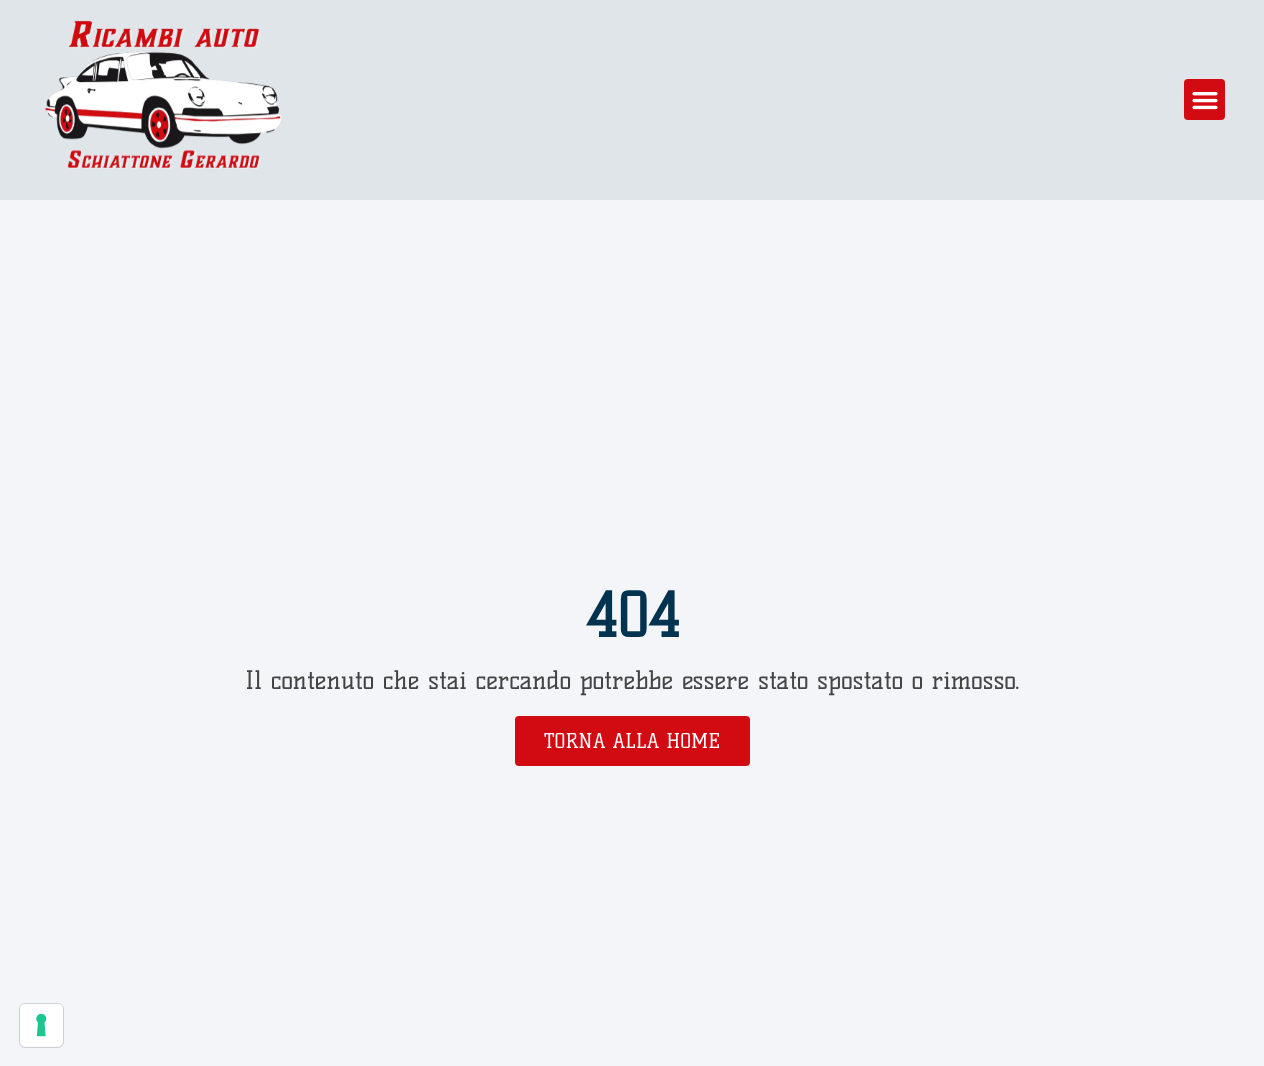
<svg xmlns="http://www.w3.org/2000/svg" width="1264" height="1066" viewBox="0 0 1264 1066">
  <rect width="100%" height="100%" fill="rgb(243,245,248)"/>
  <rect x="0" y="0" width="1264" height="200" fill="rgb(224,229,234)"/>
  <image x="45" y="20" width="237" height="149" href="pic1.png"/>
  <rect x="1184" y="79" width="41" height="41" rx="4" fill="rgb(210,10,17)"/>
  <image x="1192" y="92" width="26" height="18" href="pic2.png"/>
  <text x="586" y="637" font-family="Kelly Slab" font-size="60" font-weight="bold" fill="rgb(0,51,79)">404</text>
  <text x="245" y="689" font-family="Kelly Slab" font-size="25" fill="rgb(68,68,68)">Il contenuto che stai cercando potrebbe essere stato spostato o rimosso.</text>
  <rect x="515" y="716" width="235" height="50" rx="4" fill="rgb(210,10,17)"/>
  <text x="544" y="748" font-family="Kelly Slab" font-size="20" fill="rgb(255,255,255)">TORNA ALLA HOME</text>
  <rect x="19.5" y="1003.5" width="44" height="44" rx="5.5" fill="none" stroke="rgb(207,208,211)"/>
  <rect x="20" y="1004" width="43" height="42" rx="5" fill="rgb(255,255,255)"/>
  <image x="36" y="1013" width="11" height="24" href="pic3.png"/>
</svg>
